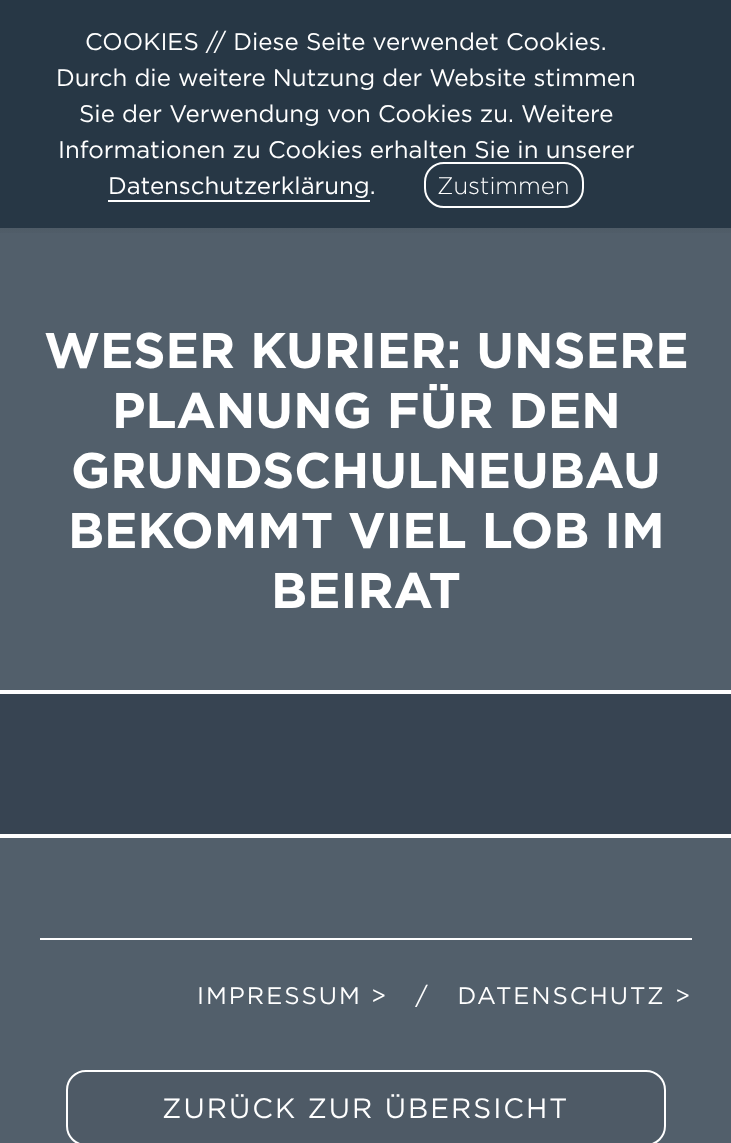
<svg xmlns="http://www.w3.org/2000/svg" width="731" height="1143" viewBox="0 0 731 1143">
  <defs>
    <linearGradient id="g1" gradientUnits="userSpaceOnUse" x1="366" y1="0" x2="366" y2="240"><stop offset="0" stop-color="rgb(43,50,57)"/><stop offset="0.63" stop-color="rgb(60,69,78)"/><stop offset="0.83" stop-color="rgb(71,83,93)"/><stop offset="1" stop-color="rgb(82,95,107)"/></linearGradient>
  </defs>
  <rect width="100%" height="100%" fill="rgb(82,95,107)"/>
  <rect x="0" y="0" width="731" height="228" fill="rgb(39,55,69)"/>
  <g font-family="Gotham" font-size="24" fill="rgb(255,255,255)">
    <text x="85" y="50">COOKIES // Diese Seite verwendet Cookies.</text>
    <text x="56" y="86">Durch die weitere Nutzung der Website stimmen</text>
    <text x="79" y="122">Sie der Verwendung von Cookies zu. Weitere</text>
    <text x="58" y="158">Informationen zu Cookies erhalten Sie in unserer</text>
    <text x="108" y="194">Datenschutzerklärung.</text>
  </g>
  <rect x="108" y="200" width="262" height="2" fill="rgb(255,255,255)"/>
  <rect x="425" y="163" width="158" height="44" rx="19" fill="none" stroke="rgb(255,255,255)" stroke-width="2"/>
  <text x="437" y="194" font-family="Gotham" font-size="24" font-weight="300" fill="rgb(255,255,255)">Zustimmen</text>
  <rect x="0" y="228" width="731" height="5" fill="url(#g1)"/>
  <g font-family="Gotham" font-size="50" font-weight="bold" fill="rgb(255,255,255)">
    <text x="44" y="368">WESER KURIER: UNSERE</text>
    <text x="112" y="428">PLANUNG FÜR DEN</text>
    <text x="71" y="488">GRUNDSCHULNEUBAU</text>
    <text x="68" y="548">BEKOMMT VIEL LOB IM</text>
    <text x="271" y="608">BEIRAT</text>
  </g>
  <rect x="0" y="694" width="731" height="140" fill="rgb(55,68,82)"/>
  <rect x="0" y="690" width="731" height="4" fill="rgb(255,255,255)"/>
  <rect x="0" y="834" width="731" height="4" fill="rgb(255,255,255)"/>
  <rect x="40" y="938" width="652" height="2" fill="rgb(255,255,255)"/>
  <text x="197" y="1004" font-family="Gotham" font-size="24" letter-spacing="2" fill="rgb(255,255,255)" xml:space="preserve">IMPRESSUM &gt;   /   DATENSCHUTZ &gt;</text>
  <rect x="67" y="1071" width="598" height="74" rx="19" fill="rgb(78,90,102)" stroke="rgb(255,255,255)" stroke-width="2"/>
  <text x="162" y="1118" font-family="Gotham" font-size="28" letter-spacing="2" fill="rgb(255,255,255)">ZURÜCK ZUR ÜBERSICHT</text>
</svg>
